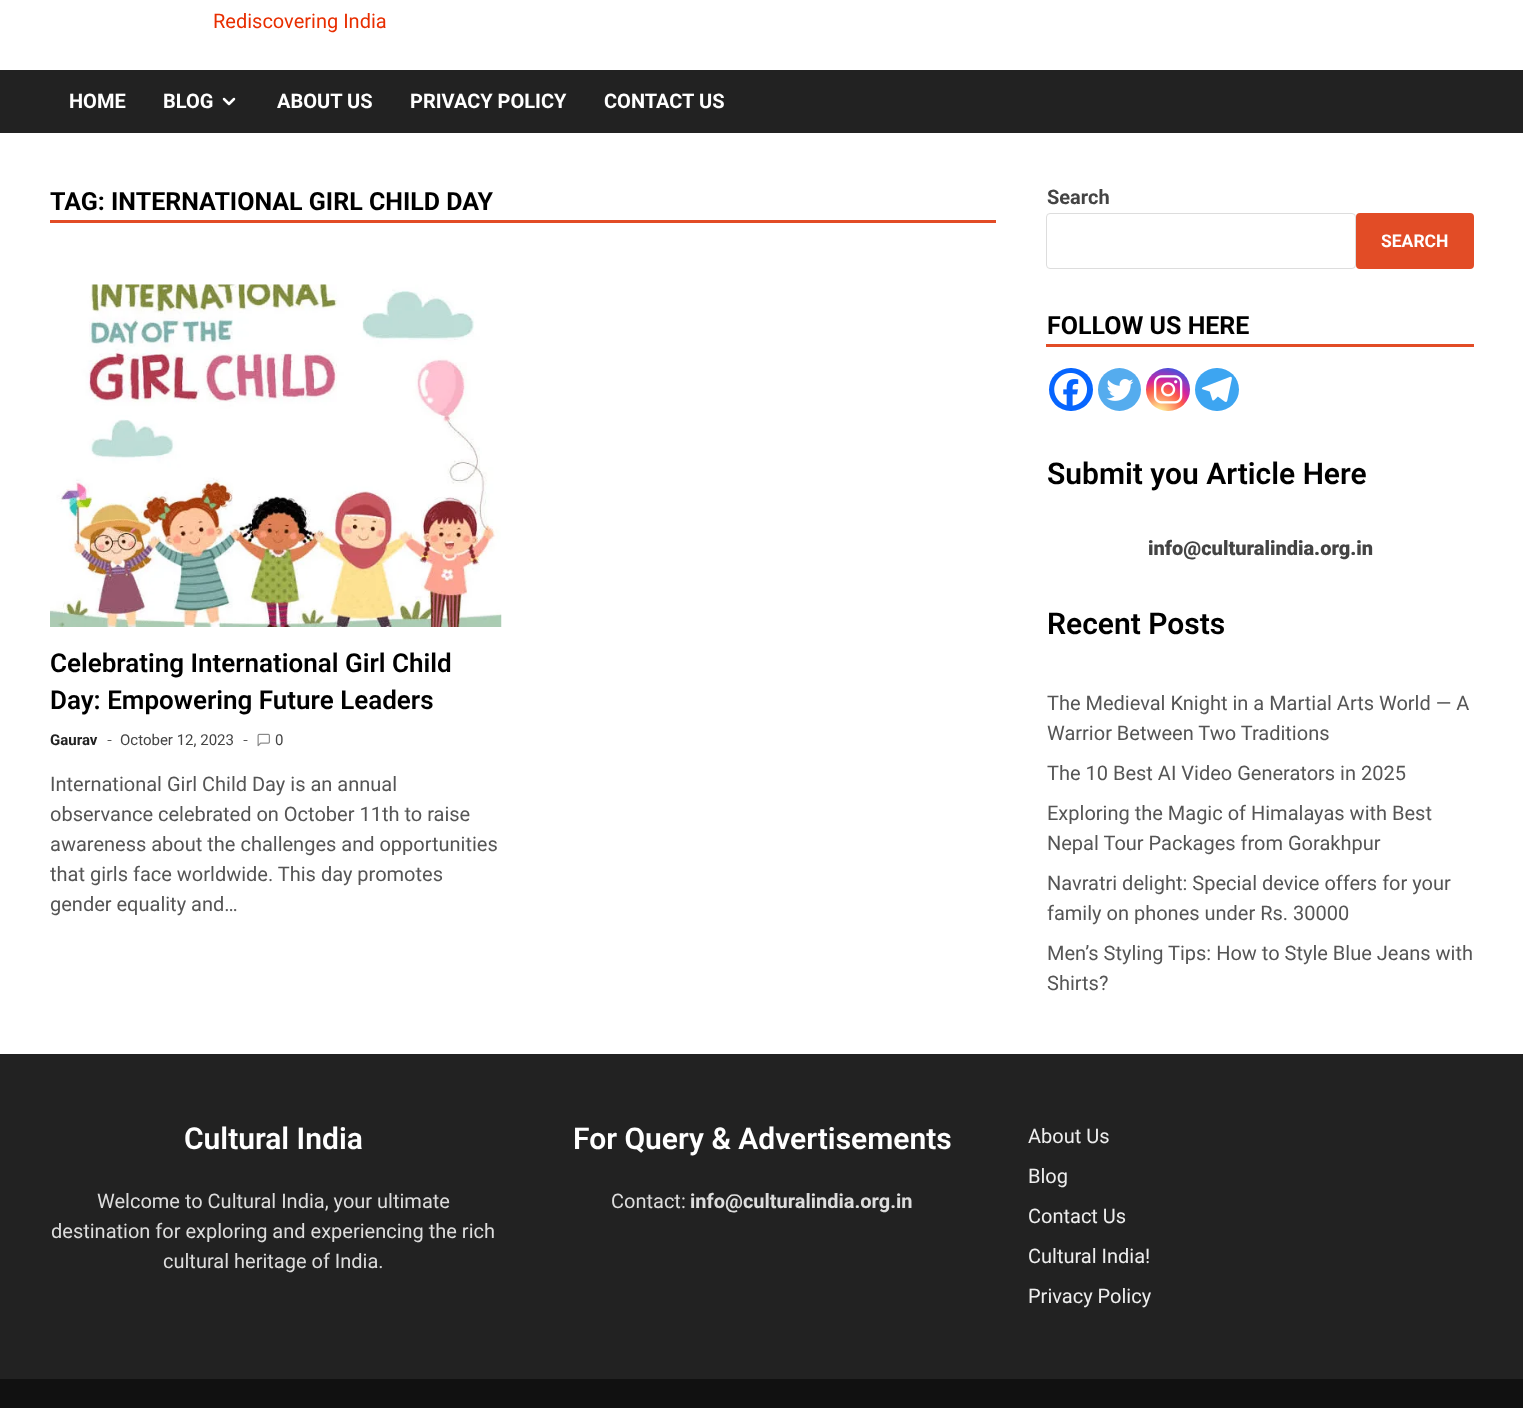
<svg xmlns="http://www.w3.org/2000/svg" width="1523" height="1408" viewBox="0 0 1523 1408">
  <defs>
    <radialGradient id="g1" gradientUnits="userSpaceOnUse" cx="1159" cy="414" r="56"><stop offset="0" stop-color="rgb(253,244,151)"/><stop offset="0.05" stop-color="rgb(253,244,151)"/><stop offset="0.45" stop-color="rgb(253,89,73)"/><stop offset="0.6" stop-color="rgb(214,36,159)"/><stop offset="0.9" stop-color="rgb(40,90,235)"/></radialGradient>
  </defs>
  <rect width="100%" height="100%" fill="rgb(255,255,255)"/>
  <text x="213" y="28" font-family="Roboto" font-size="20" fill="rgb(232,46,0)">Rediscovering India</text>
  <rect x="0" y="70" width="1523" height="63" fill="rgb(34,34,34)"/>
  <g font-family="Roboto" font-size="20" font-weight="bold" fill="rgb(255,255,255)">
    <text x="69" y="108">HOME</text>
    <text x="163" y="108">BLOG</text>
  </g>
  <path d="M224 99L229 104L234 99" fill="none" stroke="rgb(255,255,255)" stroke-width="2.5" stroke-linecap="round" stroke-linejoin="round"/>
  <g font-family="Roboto" font-size="20" font-weight="bold" fill="rgb(255,255,255)">
    <text x="277" y="108">ABOUT US</text>
    <text x="410" y="108">PRIVACY POLICY</text>
    <text x="604" y="108">CONTACT US</text>
  </g>
  <rect x="50" y="220" width="946" height="3" fill="rgb(226,76,38)"/>
  <text x="50" y="210" font-family="Roboto" font-size="25" font-weight="bold" fill="rgb(0,0,0)">TAG: INTERNATIONAL GIRL CHILD DAY</text>
  <image x="50" y="284" width="452" height="343" href="pic1.png"/>
  <g font-family="Roboto" font-size="26" font-weight="600" fill="rgb(0,0,0)">
    <text>
      <tspan x="50" y="672">Celebrating International Girl Child</tspan>
      <tspan x="50" y="709">Day: Empowering Future Leaders</tspan>
    </text>
  </g>
  <text x="50" y="745" font-family="Roboto" font-size="15" font-weight="bold" fill="rgb(34,34,34)">Gaurav</text>
  <path d="M108 740.5H111" fill="none" stroke="rgb(85,85,85)" stroke-width="1.2" stroke-linecap="round" stroke-linejoin="round"/>
  <text x="120" y="745" font-family="Roboto" font-size="15" fill="rgb(68,68,68)">October 12, 2023</text>
  <path d="M244 740.5H247" fill="none" stroke="rgb(85,85,85)" stroke-width="1.2" stroke-linecap="round" stroke-linejoin="round"/>
  <image x="257" y="733" width="13" height="14" href="pic2.png"/>
  <text x="275" y="745" font-family="Roboto" font-size="15" fill="rgb(68,68,68)">0</text>
  <g font-family="Roboto" font-size="20" fill="rgb(85,85,85)">
    <text>
      <tspan x="50" y="791">International Girl Child Day is an annual</tspan>
      <tspan x="50" y="821">observance celebrated on October 11th to raise</tspan>
      <tspan x="50" y="851">awareness about the challenges and opportunities</tspan>
      <tspan x="50" y="881">that girls face worldwide. This day promotes</tspan>
      <tspan x="50" y="911">gender equality and…</tspan>
    </text>
  </g>
  <text x="1047" y="204" font-family="Roboto" font-size="20" font-weight="bold" fill="rgb(68,68,68)">Search</text>
  <rect x="1046.5" y="213.5" width="309" height="55" rx="3.5" fill="none" stroke="rgb(221,221,221)"/>
  <rect x="1356" y="213" width="118" height="56" rx="4" fill="rgb(226,76,38)"/>
  <text x="1381" y="247" font-family="Roboto" font-size="17.5" font-weight="bold" fill="rgb(255,255,255)">SEARCH</text>
  <rect x="1046" y="344" width="428" height="3" fill="rgb(226,76,38)"/>
  <text x="1047" y="334" font-family="Roboto" font-size="25" font-weight="bold" fill="rgb(0,0,0)">FOLLOW US HERE</text>
  <rect x="1049" y="368" width="44" height="43" rx="21.5" fill="rgb(7,101,254)"/>
  <image x="1054" y="373" width="33" height="33" href="pic3.png"/>
  <circle cx="1119.5" cy="389.5" r="21.5" fill="rgb(85,172,238)"/>
  <image x="1106" y="379" width="28" height="22" href="pic4.png"/>
  <rect x="1146" y="368" width="44" height="43" rx="21.5" fill="url(#g1)"/>
  <image x="1153" y="375" width="30" height="29" href="pic5.png"/>
  <rect x="1195" y="368" width="44" height="43" rx="21.5" fill="rgb(61,165,241)"/>
  <image x="1201" y="376" width="31" height="26" href="pic6.png"/>
  <text x="1047" y="484" font-family="Roboto" font-size="30" font-weight="600" fill="rgb(0,0,0)">Submit you Article Here</text>
  <text x="1148" y="555" font-family="Roboto" font-size="20" font-weight="900" fill="rgb(68,68,68)">info@culturalindia.org.in</text>
  <text x="1047" y="634" font-family="Roboto" font-size="30" font-weight="600" fill="rgb(0,0,0)">Recent Posts</text>
  <g font-family="Roboto" font-size="20" fill="rgb(85,85,85)">
    <text>
      <tspan x="1047" y="710">The Medieval Knight in a Martial Arts World — A</tspan>
      <tspan x="1047" y="740">Warrior Between Two Traditions</tspan>
    </text>
    <text x="1047" y="780">The 10 Best AI Video Generators in 2025</text>
    <text>
      <tspan x="1047" y="820">Exploring the Magic of Himalayas with Best</tspan>
      <tspan x="1047" y="850">Nepal Tour Packages from Gorakhpur</tspan>
    </text>
    <text>
      <tspan x="1047" y="890">Navratri delight: Special device offers for your</tspan>
      <tspan x="1047" y="920">family on phones under Rs. 30000</tspan>
    </text>
    <text>
      <tspan x="1047" y="960">Men’s Styling Tips: How to Style Blue Jeans with</tspan>
      <tspan x="1047" y="990">Shirts?</tspan>
    </text>
  </g>
  <rect x="0" y="1054" width="1523" height="325" fill="rgb(34,34,34)"/>
  <text x="184" y="1149" font-family="Roboto" font-size="30" font-weight="600" fill="rgb(255,255,255)">Cultural India</text>
  <g font-family="Roboto" font-size="20" fill="rgb(221,221,221)">
    <text x="97" y="1208">Welcome to Cultural India, your ultimate</text>
    <text x="51" y="1238">destination for exploring and experiencing the rich</text>
    <text x="163" y="1268">cultural heritage of India.</text>
  </g>
  <text x="573" y="1149" font-family="Roboto" font-size="30" font-weight="600" fill="rgb(255,255,255)">For Query &amp; Advertisements</text>
  <text x="611" y="1208" font-family="Roboto" font-size="20" fill="rgb(221,221,221)">Contact:</text>
  <text x="690" y="1208" font-family="Roboto" font-size="20" font-weight="bold" fill="rgb(221,221,221)">info@culturalindia.org.in</text>
  <g font-family="Roboto" font-size="20" fill="rgb(238,238,238)">
    <text x="1028" y="1143">About Us</text>
    <text x="1028" y="1183">Blog</text>
    <text x="1028" y="1223">Contact Us</text>
    <text x="1028" y="1263">Cultural India!</text>
    <text x="1028" y="1303">Privacy Policy</text>
  </g>
  <rect x="0" y="1379" width="1523" height="29" fill="rgb(17,17,17)"/>
</svg>
